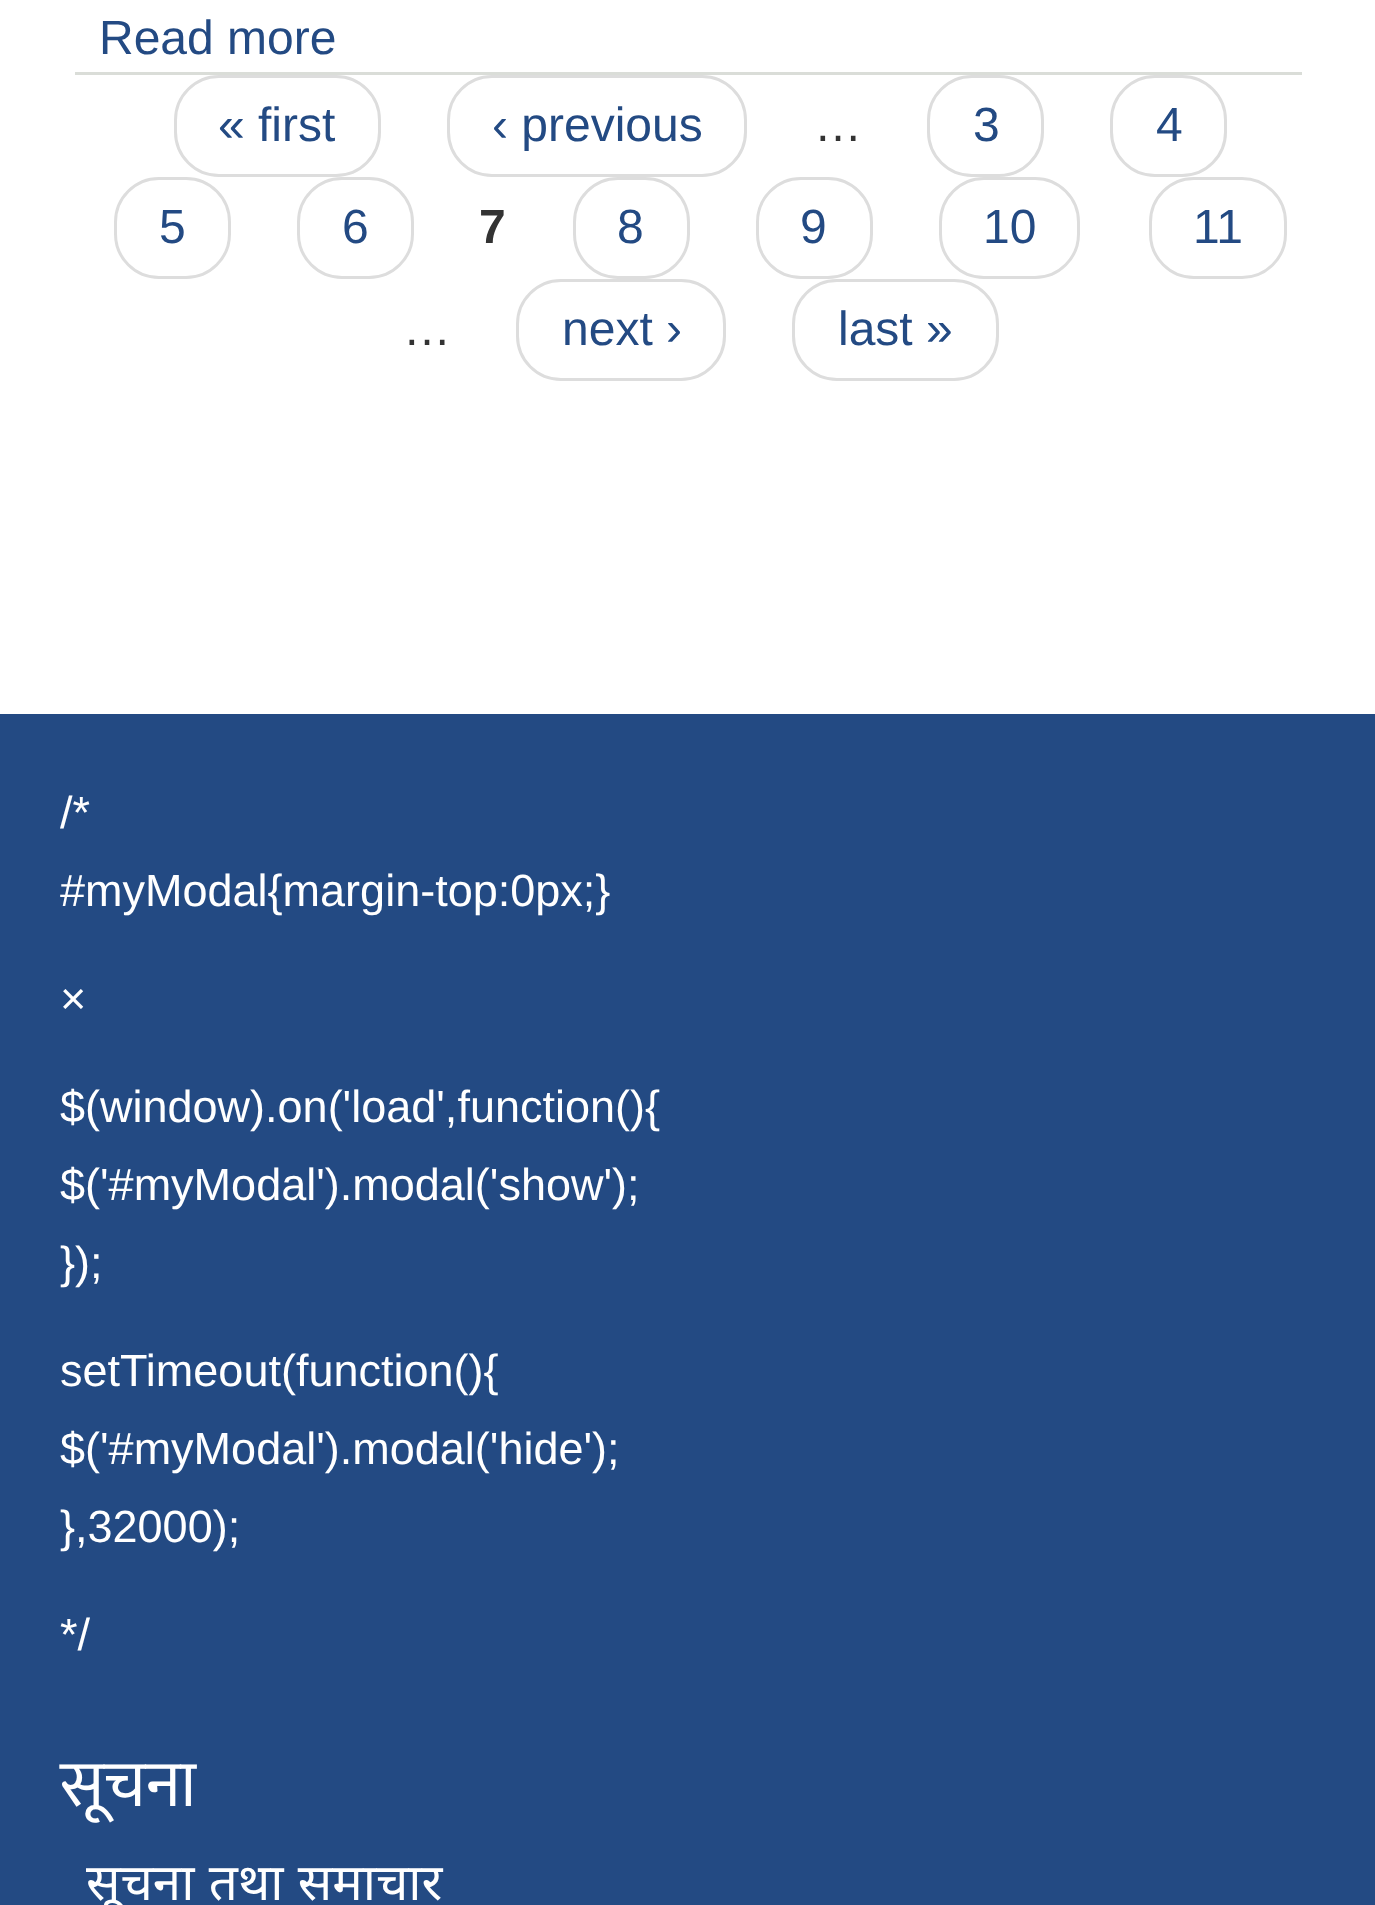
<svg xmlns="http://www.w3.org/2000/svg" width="1375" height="1905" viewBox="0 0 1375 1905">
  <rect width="100%" height="100%" fill="rgb(255,255,255)"/>
  <rect x="75" y="72" width="1227" height="3" fill="rgb(218,221,216)"/>
  <text x="99" y="54" font-family="Liberation Sans" font-size="48" fill="rgb(35,74,131)">Read more</text>
  <rect x="175.5" y="76.5" width="204" height="99" rx="43.5" fill="none" stroke="rgb(221,221,221)" stroke-width="3"/>
  <text x="218" y="141" font-family="Liberation Sans" font-size="48" fill="rgb(35,74,131)">« first</text>
  <rect x="448.5" y="76.5" width="297" height="99" rx="43.5" fill="none" stroke="rgb(221,221,221)" stroke-width="3"/>
  <text x="492" y="141" font-family="Liberation Sans" font-size="48" fill="rgb(35,74,131)">‹ previous</text>
  <text x="814" y="141" font-family="Liberation Sans" font-size="48" fill="rgb(51,51,51)">…</text>
  <rect x="928.5" y="76.5" width="114" height="99" rx="43.5" fill="none" stroke="rgb(221,221,221)" stroke-width="3"/>
  <text x="973" y="141" font-family="Liberation Sans" font-size="48" fill="rgb(35,74,131)">3</text>
  <rect x="1111.5" y="76.5" width="114" height="99" rx="43.5" fill="none" stroke="rgb(221,221,221)" stroke-width="3"/>
  <text x="1156" y="141" font-family="Liberation Sans" font-size="48" fill="rgb(35,74,131)">4</text>
  <rect x="115.5" y="178.5" width="114" height="99" rx="43.5" fill="none" stroke="rgb(221,221,221)" stroke-width="3"/>
  <text x="159" y="243" font-family="Liberation Sans" font-size="48" fill="rgb(35,74,131)">5</text>
  <rect x="298.5" y="178.5" width="114" height="99" rx="43.5" fill="none" stroke="rgb(221,221,221)" stroke-width="3"/>
  <text x="342" y="243" font-family="Liberation Sans" font-size="48" fill="rgb(35,74,131)">6</text>
  <text x="479" y="243" font-family="Liberation Sans" font-size="48" font-weight="bold" fill="rgb(51,51,51)">7</text>
  <rect x="574.5" y="178.5" width="114" height="99" rx="43.5" fill="none" stroke="rgb(221,221,221)" stroke-width="3"/>
  <text x="617" y="243" font-family="Liberation Sans" font-size="48" fill="rgb(35,74,131)">8</text>
  <rect x="757.5" y="178.5" width="114" height="99" rx="43.5" fill="none" stroke="rgb(221,221,221)" stroke-width="3"/>
  <text x="800" y="243" font-family="Liberation Sans" font-size="48" fill="rgb(35,74,131)">9</text>
  <rect x="940.5" y="178.5" width="138" height="99" rx="43.5" fill="none" stroke="rgb(221,221,221)" stroke-width="3"/>
  <text x="983" y="243" font-family="Liberation Sans" font-size="48" fill="rgb(35,74,131)">10</text>
  <rect x="1150.5" y="178.5" width="135" height="99" rx="43.5" fill="none" stroke="rgb(221,221,221)" stroke-width="3"/>
  <text x="1193" y="243" font-family="Liberation Sans" font-size="48" fill="rgb(35,74,131)">11</text>
  <text x="403" y="345" font-family="Liberation Sans" font-size="48" fill="rgb(51,51,51)">…</text>
  <rect x="517.5" y="280.5" width="207" height="99" rx="43.5" fill="none" stroke="rgb(221,221,221)" stroke-width="3"/>
  <text x="562" y="345" font-family="Liberation Sans" font-size="48" fill="rgb(35,74,131)">next ›</text>
  <rect x="793.5" y="280.5" width="204" height="99" rx="43.5" fill="none" stroke="rgb(221,221,221)" stroke-width="3"/>
  <text x="838" y="345" font-family="Liberation Sans" font-size="48" fill="rgb(35,74,131)">last »</text>
  <rect x="0" y="714" width="1375" height="1191" fill="rgb(35,74,131)"/>
  <g font-family="Liberation Sans" font-size="45" fill="rgb(255,255,255)">
    <text>
      <tspan x="60" y="828">/*</tspan>
      <tspan x="60" y="906">#myModal{margin-top:0px;}</tspan>
    </text>
    <text x="60" y="1014">×</text>
    <text>
      <tspan x="60" y="1122">$(window).on('load',function(){</tspan>
      <tspan x="60" y="1200">$('#myModal').modal('show');</tspan>
      <tspan x="60" y="1278">});</tspan>
    </text>
    <text>
      <tspan x="60" y="1386">setTimeout(function(){</tspan>
      <tspan x="60" y="1464">$('#myModal').modal('hide');</tspan>
      <tspan x="60" y="1542">},32000);</tspan>
    </text>
    <text x="60" y="1650">*/</text>
  </g>
  <text x="60" y="1806" font-family="Mukta" font-size="66" fill="rgb(255,255,255)">सूचना</text>
  <text x="86" y="1900" word-spacing="1" font-family="Noto Sans" font-size="51" fill="rgb(255,255,255)">सूचना तथा समाचार</text>
</svg>
